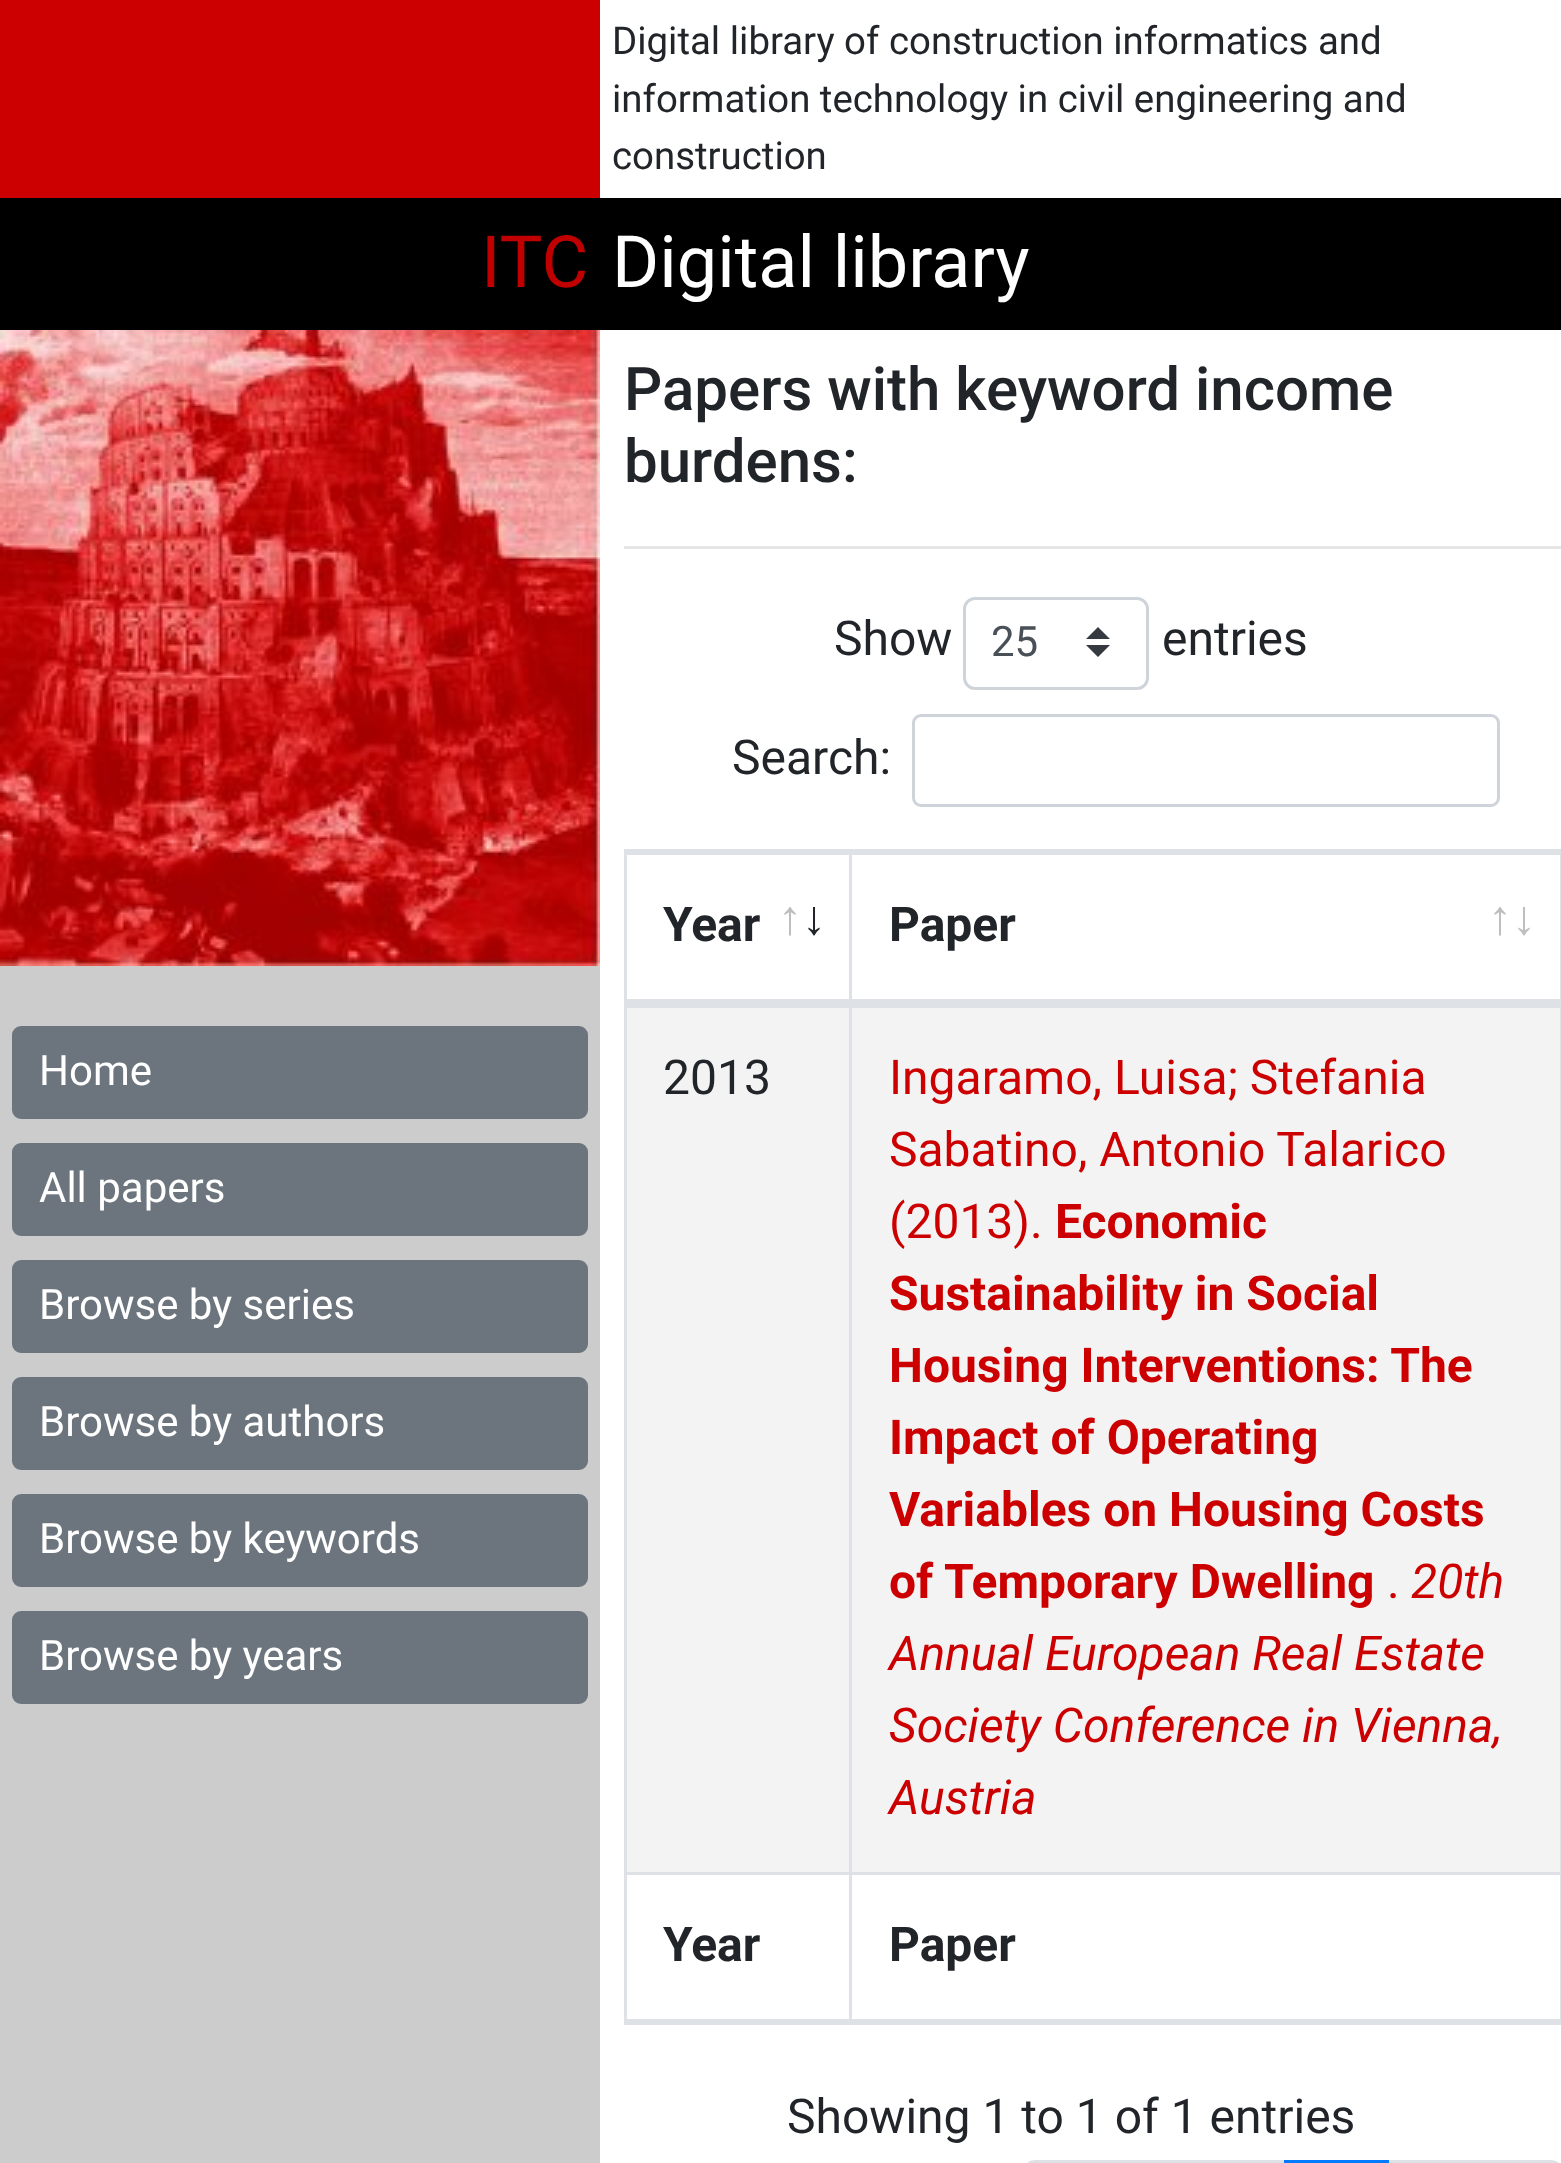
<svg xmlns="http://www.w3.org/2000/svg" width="1561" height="2163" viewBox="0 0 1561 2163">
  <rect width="100%" height="100%" fill="rgb(255,255,255)"/>
  <rect x="0" y="0" width="600" height="198" fill="rgb(204,0,0)"/>
  <g font-family="Roboto" font-size="38.4" fill="rgb(33,37,41)">
    <text>
      <tspan x="612" y="54">Digital library of construction informatics and</tspan>
      <tspan x="612" y="112">information technology in civil engineering and</tspan>
      <tspan x="612" y="169">construction</tspan>
    </text>
  </g>
  <rect x="0" y="198" width="1561" height="132" fill="rgb(0,0,0)"/>
  <text x="481" y="287" font-family="Roboto" font-size="72" fill="rgb(192,0,0)">ITC</text>
  <text x="612" y="287" font-family="Roboto" font-size="72" fill="rgb(255,255,255)">Digital library</text>
  <rect x="0" y="966" width="600" height="1197" fill="rgb(204,204,204)"/>
  <image x="0" y="330" width="600" height="636" href="pic1.png"/>
  <rect x="13.5" y="1027.5" width="573" height="90" rx="7.5" fill="rgb(108,117,125)" stroke="rgb(108,117,125)" stroke-width="3"/>
  <text x="39" y="1085" font-family="Roboto" font-size="42" fill="rgb(255,255,255)">Home</text>
  <rect x="13.5" y="1144.5" width="573" height="90" rx="7.5" fill="rgb(108,117,125)" stroke="rgb(108,117,125)" stroke-width="3"/>
  <text x="39" y="1202" font-family="Roboto" font-size="42" fill="rgb(255,255,255)">All papers</text>
  <rect x="13.5" y="1261.5" width="573" height="90" rx="7.5" fill="rgb(108,117,125)" stroke="rgb(108,117,125)" stroke-width="3"/>
  <text x="39" y="1319" font-family="Roboto" font-size="42" fill="rgb(255,255,255)">Browse by series</text>
  <rect x="13.5" y="1378.5" width="573" height="90" rx="7.5" fill="rgb(108,117,125)" stroke="rgb(108,117,125)" stroke-width="3"/>
  <text x="39" y="1436" font-family="Roboto" font-size="42" fill="rgb(255,255,255)">Browse by authors</text>
  <rect x="13.5" y="1495.5" width="573" height="90" rx="7.5" fill="rgb(108,117,125)" stroke="rgb(108,117,125)" stroke-width="3"/>
  <text x="39" y="1553" font-family="Roboto" font-size="42" fill="rgb(255,255,255)">Browse by keywords</text>
  <rect x="13.5" y="1612.5" width="573" height="90" rx="7.5" fill="rgb(108,117,125)" stroke="rgb(108,117,125)" stroke-width="3"/>
  <text x="39" y="1670" font-family="Roboto" font-size="42" fill="rgb(255,255,255)">Browse by years</text>
  <g font-family="Roboto" font-size="60" font-weight="500" fill="rgb(33,37,41)">
    <text>
      <tspan x="624" y="410">Papers with keyword income</tspan>
      <tspan x="624" y="482">burdens:</tspan>
    </text>
  </g>
  <rect x="624" y="546" width="937" height="3" fill="rgb(230,230,230)"/>
  <text x="834" y="655" font-family="Roboto" font-size="48" fill="rgb(33,37,41)">Show</text>
  <path d="M1098 627L1086 639H1110ZM1098 657L1086 645H1110Z" fill="rgb(52,58,64)"/>
  <rect x="964.5" y="598.5" width="183" height="90" rx="10.5" fill="none" stroke="rgb(206,212,218)" stroke-width="3"/>
  <text x="991" y="656" font-family="Roboto" font-size="42" fill="rgb(73,80,87)">25</text>
  <g font-family="Roboto" font-size="48" fill="rgb(33,37,41)">
    <text x="1162" y="655">entries</text>
    <text x="732" y="774">Search:</text>
  </g>
  <rect x="913.5" y="715.5" width="585" height="90" rx="7.5" fill="none" stroke="rgb(206,212,218)" stroke-width="3"/>
  <rect x="625.5" y="850.5" width="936" height="1173" fill="none" stroke="rgb(222,226,230)" stroke-width="3"/>
  <rect x="627" y="852" width="933" height="3" fill="rgb(222,226,230)"/>
  <rect x="849" y="852" width="3" height="153" fill="rgb(222,226,230)"/>
  <rect x="627" y="999" width="933" height="6" fill="rgb(222,226,230)"/>
  <text x="663" y="941" font-family="Roboto" font-size="48" font-weight="bold" fill="rgb(33,37,41)">Year</text>
  <text x="778" y="934" font-family="Liberation Sans" font-size="48" font-weight="bold" fill="rgb(188,190,191)">↑</text>
  <text x="802" y="934" font-family="Liberation Sans" font-size="48" font-weight="bold" fill="rgb(33,37,41)">↓</text>
  <text x="889" y="941" font-family="Roboto" font-size="48" font-weight="bold" fill="rgb(33,37,41)">Paper</text>
  <text x="1488" y="934" font-family="Liberation Sans" font-size="48" font-weight="bold" fill="rgb(188,190,191)">↑↓</text>
  <rect x="627" y="1008" width="933" height="864" fill="rgb(243,243,243)"/>
  <rect x="627" y="1005" width="933" height="3" fill="rgb(222,226,230)"/>
  <rect x="849" y="1005" width="3" height="867" fill="rgb(222,226,230)"/>
  <text x="663" y="1094" font-family="Roboto" font-size="48" fill="rgb(33,37,41)">2013</text>
  <g font-family="Roboto" font-size="48" fill="rgb(204,0,0)">
    <text>
      <tspan x="889" y="1094">Ingaramo, Luisa; Stefania</tspan>
      <tspan x="889" y="1166">Sabatino, Antonio Talarico</tspan>
      <tspan x="889" y="1238">(2013).</tspan>
    </text>
  </g>
  <g font-family="Roboto" font-size="48" font-weight="bold" fill="rgb(204,0,0)">
    <text x="1055" y="1238">Economic</text>
    <text>
      <tspan x="889" y="1310">Sustainability in Social</tspan>
      <tspan x="889" y="1382">Housing Interventions: The</tspan>
      <tspan x="889" y="1454">Impact of Operating</tspan>
      <tspan x="889" y="1526">Variables on Housing Costs</tspan>
      <tspan x="889" y="1598">of Temporary Dwelling</tspan>
    </text>
  </g>
  <text x="1387" y="1598" font-family="Roboto" font-size="48" fill="rgb(204,0,0)">.</text>
  <g font-family="Roboto" font-size="48" font-style="italic" fill="rgb(204,0,0)">
    <text x="1411" y="1598">20th</text>
    <text>
      <tspan x="889" y="1670">Annual European Real Estate</tspan>
      <tspan x="889" y="1742">Society Conference in Vienna,</tspan>
      <tspan x="889" y="1814">Austria</tspan>
    </text>
  </g>
  <rect x="627" y="1872" width="933" height="3" fill="rgb(222,226,230)"/>
  <rect x="849" y="1872" width="3" height="150" fill="rgb(222,226,230)"/>
  <rect x="627" y="2019" width="933" height="3" fill="rgb(222,226,230)"/>
  <g font-family="Roboto" font-size="48" font-weight="bold" fill="rgb(33,37,41)">
    <text x="663" y="1961">Year</text>
    <text x="889" y="1961">Paper</text>
  </g>
  <text x="787" y="2133" font-family="Roboto" font-size="48" fill="rgb(33,37,41)">Showing 1 to 1 of 1 entries</text>
  <path d="M1035 2161.5H1285.5V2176.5H1035C1029 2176.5 1024.5 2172 1024.5 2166V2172C1024.5 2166 1029 2161.5 1035 2161.5Z" fill="none" stroke="rgb(222,226,230)" stroke-width="3"/>
  <path d="M1387.5 2161.5H1551C1557 2161.5 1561.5 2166 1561.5 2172V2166C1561.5 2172 1557 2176.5 1551 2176.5H1387.5Z" fill="none" stroke="rgb(222,226,230)" stroke-width="3"/>
  <rect x="1284" y="2160" width="105" height="3" fill="rgb(0,123,255)"/>
</svg>
